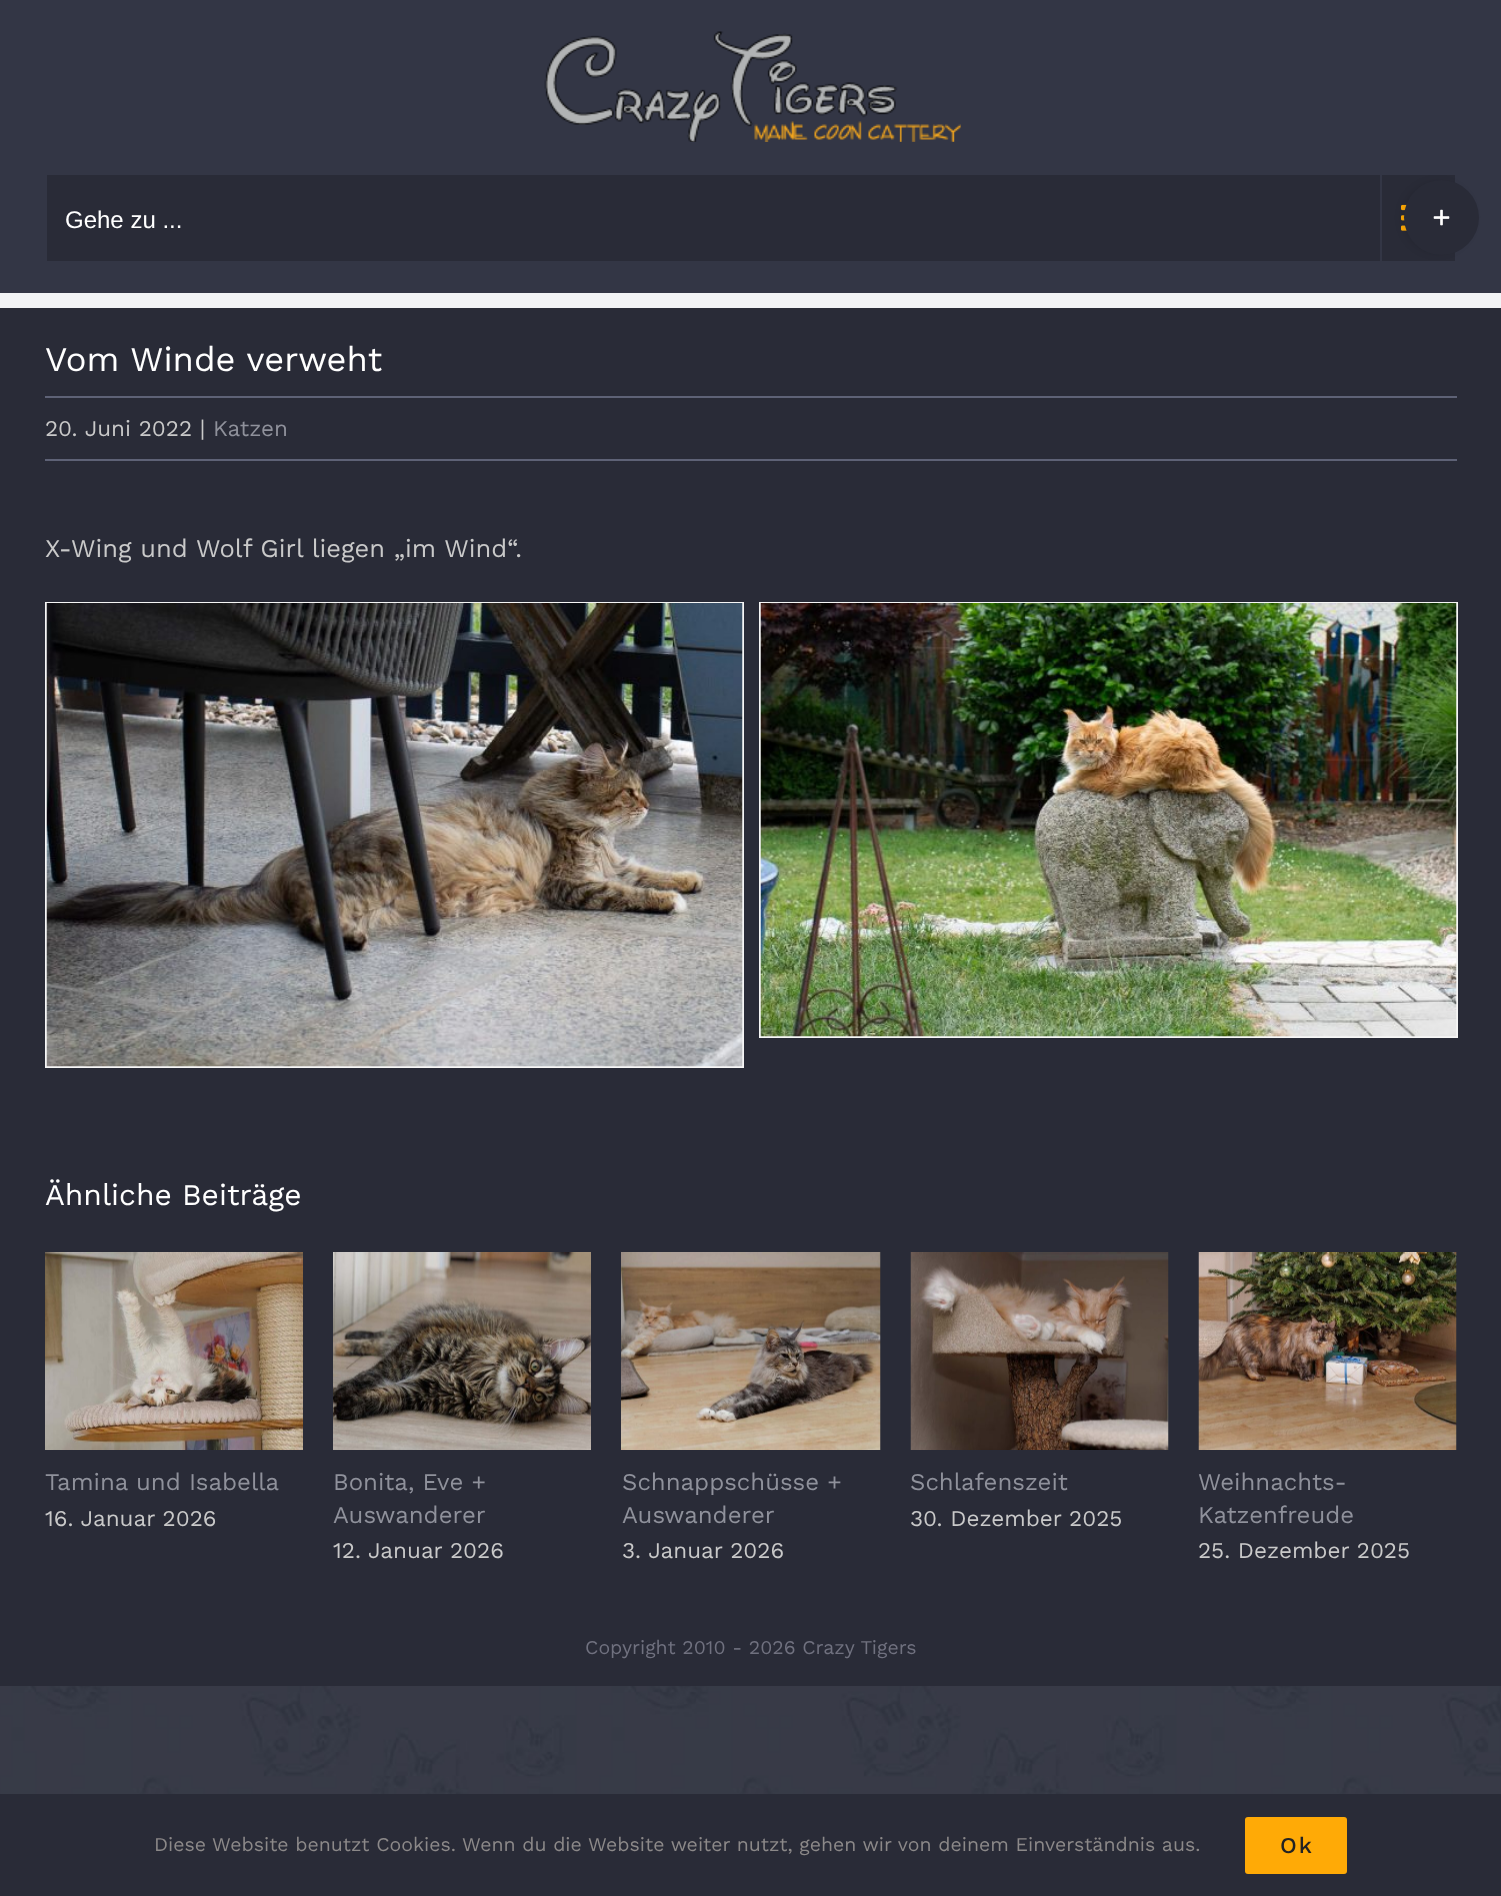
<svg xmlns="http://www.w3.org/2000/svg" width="1501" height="1896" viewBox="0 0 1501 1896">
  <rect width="100%" height="100%" fill="rgb(255,255,255)"/>
  <image x="0" y="1686" width="1501" height="108" href="pic1.png"/>
  <rect x="0" y="0" width="1501" height="293" fill="rgb(51,54,69)"/>
  <image x="544" y="31" width="417" height="111" href="pic2.png"/>
  <rect x="47" y="175" width="1408" height="86" fill="rgb(41,43,55)"/>
  <text x="65" y="228" font-family="Liberation Sans" font-size="24" fill="rgb(255,255,255)">Gehe zu ...</text>
  <rect x="1380" y="174" width="2" height="87" fill="rgb(51,54,69)"/>
  <image x="1401" y="204" width="6" height="27" href="pic3.png"/>
  <rect x="1403" y="183" width="69" height="69" rx="34.5" fill="rgba(0,0,0,0.14)" filter="blur(4px)"/>
  <circle cx="1441.5" cy="217.5" r="37.5" fill="rgb(41,43,55)"/>
  <image x="1433" y="209" width="17" height="17" href="pic4.png"/>
  <rect x="0" y="293" width="1501" height="15" fill="rgb(242,243,245)"/>
  <rect x="0" y="308" width="1501" height="1378" fill="rgb(41,43,55)"/>
  <text x="45" y="371" font-family="Work Sans" font-size="34.5" fill="rgb(255,255,255)">Vom Winde verweht</text>
  <rect x="45" y="396" width="1412" height="2" fill="rgb(94,98,118)"/>
  <rect x="45" y="459" width="1412" height="2" fill="rgb(94,98,118)"/>
  <text x="45" y="436" font-family="Work Sans" font-size="22.5" fill="rgb(201,201,201)">20. Juni 2022 |</text>
  <text x="213" y="436" font-family="Work Sans" font-size="22.5" fill="rgb(143,145,155)">Katzen</text>
  <text x="45" y="557" font-family="Work Sans" font-size="25.5" fill="rgb(201,201,201)">X-Wing und Wolf Girl liegen „im Wind“.</text>
  <rect x="46" y="603" width="697" height="464" fill="none" stroke="rgb(246,246,246)" stroke-width="2"/>
  <image x="46" y="603" width="697" height="464" href="pic5.png"/>
  <rect x="760" y="603" width="697" height="434" fill="none" stroke="rgb(246,246,246)" stroke-width="2"/>
  <image x="760" y="603" width="697" height="434" href="pic6.png"/>
  <text x="45" y="1205" font-family="Work Sans" font-size="30" fill="rgb(255,255,255)">Ähnliche Beiträge</text>
  <image x="45" y="1252" width="258" height="198" href="pic7.png"/>
  <text x="45" y="1490" font-family="Work Sans" font-size="24" fill="rgb(143,145,155)">Tamina und Isabella</text>
  <text x="45" y="1526" font-family="Work Sans" font-size="22.5" fill="rgb(201,201,201)">16. Januar 2026</text>
  <image x="333" y="1252" width="258" height="198" href="pic8.png"/>
  <g font-family="Work Sans" font-size="24" fill="rgb(143,145,155)">
    <text>
      <tspan x="333" y="1490">Bonita, Eve +</tspan>
      <tspan x="333" y="1523">Auswanderer</tspan>
    </text>
  </g>
  <text x="333" y="1558" font-family="Work Sans" font-size="22.5" fill="rgb(201,201,201)">12. Januar 2026</text>
  <image x="621" y="1252" width="260" height="198" href="pic9.png"/>
  <g font-family="Work Sans" font-size="24" fill="rgb(143,145,155)">
    <text>
      <tspan x="622" y="1490">Schnappschüsse +</tspan>
      <tspan x="622" y="1523">Auswanderer</tspan>
    </text>
  </g>
  <text x="622" y="1558" font-family="Work Sans" font-size="22.5" fill="rgb(201,201,201)">3. Januar 2026</text>
  <image x="910" y="1252" width="259" height="198" href="pic10.png"/>
  <text x="910" y="1490" font-family="Work Sans" font-size="24" fill="rgb(143,145,155)">Schlafenszeit</text>
  <text x="910" y="1526" font-family="Work Sans" font-size="22.5" fill="rgb(201,201,201)">30. Dezember 2025</text>
  <image x="1198" y="1252" width="259" height="198" href="pic11.png"/>
  <g font-family="Work Sans" font-size="24" fill="rgb(143,145,155)">
    <text>
      <tspan x="1198" y="1490">Weihnachts-</tspan>
      <tspan x="1198" y="1523">Katzenfreude</tspan>
    </text>
  </g>
  <text x="1198" y="1558" font-family="Work Sans" font-size="22.5" fill="rgb(201,201,201)">25. Dezember 2025</text>
  <text x="585" y="1654" font-family="Work Sans" font-size="19.5" fill="rgb(112,113,127)">Copyright 2010 - 2026 Crazy Tigers</text>
  <rect x="0" y="1794" width="1501" height="102" fill="rgb(41,43,55)"/>
  <text x="154" y="1851" font-family="Work Sans" font-size="19.5" fill="rgb(140,137,137)">Diese Website benutzt Cookies. Wenn du die Website weiter nutzt, gehen wir von deinem Einverständnis aus.</text>
  <rect x="1245" y="1817" width="102" height="57" rx="3" fill="rgb(255,170,6)"/>
  <text x="1280" y="1853" font-family="Work Sans" font-size="22.5" font-weight="500" letter-spacing="2" fill="rgb(35,35,35)">Ok</text>
</svg>
